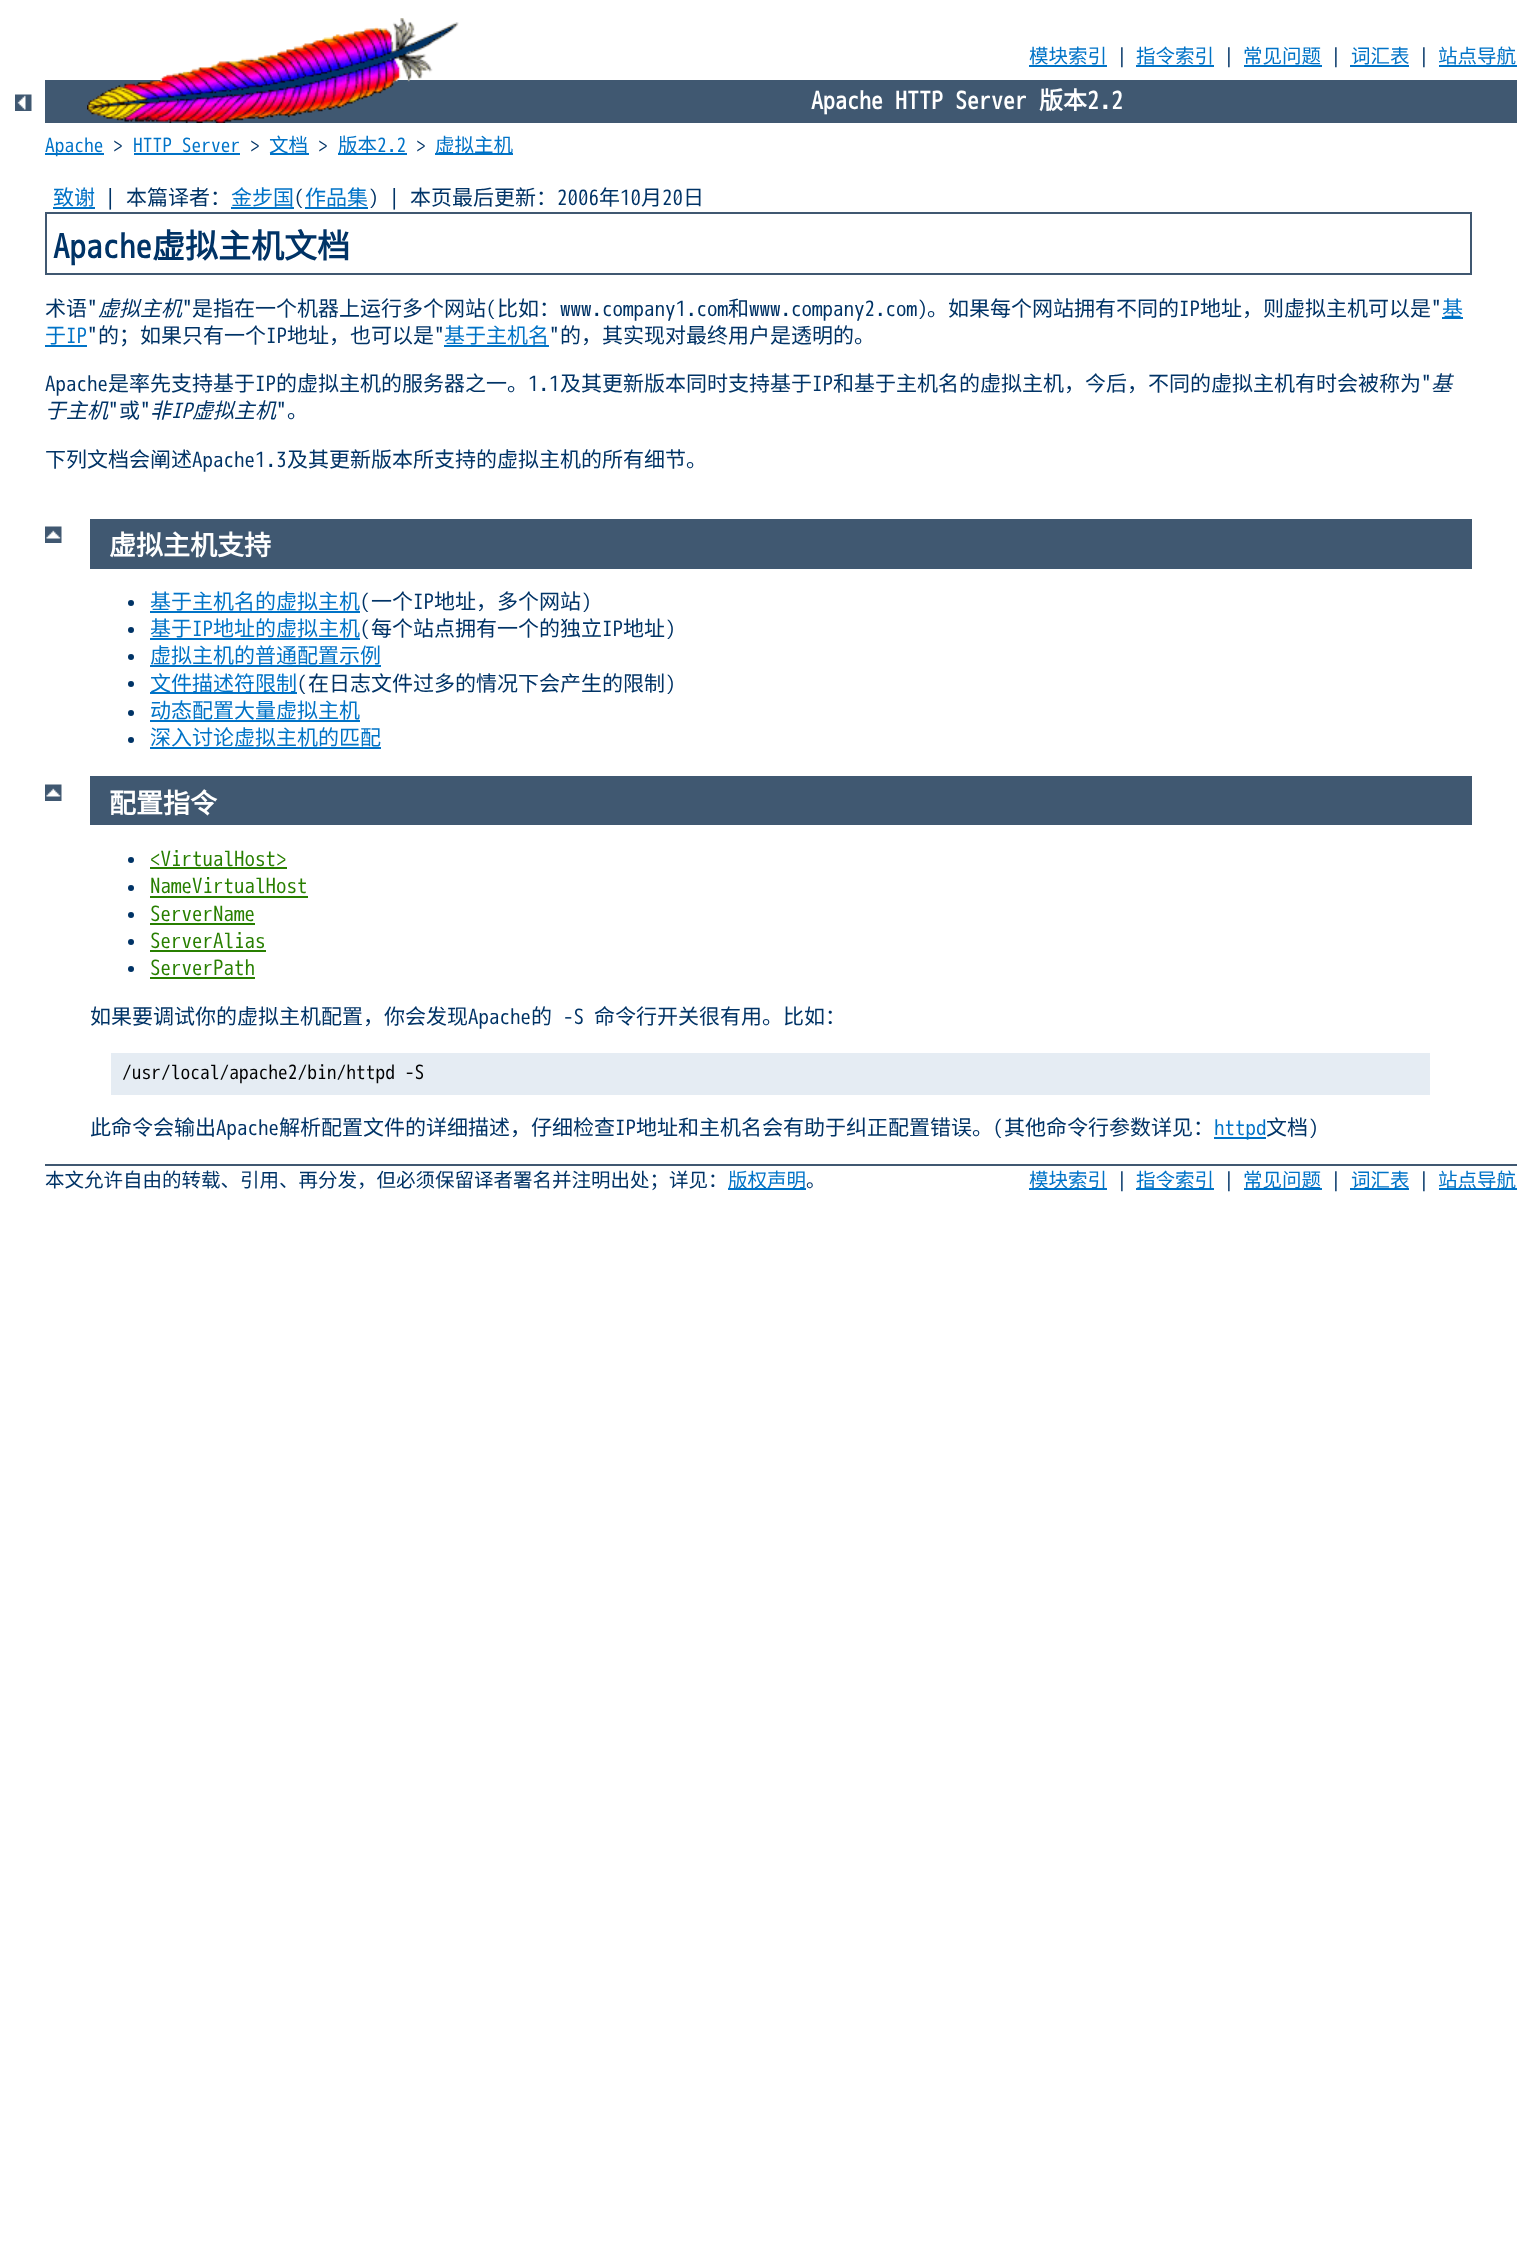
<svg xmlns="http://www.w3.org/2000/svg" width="1537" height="2251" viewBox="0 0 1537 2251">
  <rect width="100%" height="100%" fill="rgb(255,255,255)"/>
  <image x="15" y="94" width="17" height="17" href="pic1.png"/>
  <rect x="45" y="80" width="1472" height="43" fill="rgb(64,88,113)"/>
  <image x="87" y="18" width="372" height="105" href="pic2.png"/>
  <text x="1029" y="63" font-family="Noto Sans CJK SC" font-size="19.5" fill="rgb(0,115,199)">模块索引</text>
  <rect x="1029" y="65" width="78" height="2" fill="rgb(0,115,199)"/>
  <text x="1117" y="63" font-family="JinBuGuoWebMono" font-size="19.5" fill="rgb(0,51,102)">|</text>
  <text x="1136" y="63" font-family="Noto Sans CJK SC" font-size="19.5" fill="rgb(0,115,199)">指令索引</text>
  <rect x="1136" y="65" width="78" height="2" fill="rgb(0,115,199)"/>
  <text x="1224" y="63" font-family="JinBuGuoWebMono" font-size="19.5" fill="rgb(0,51,102)">|</text>
  <text x="1243" y="63" font-family="Noto Sans CJK SC" font-size="19.5" fill="rgb(0,115,199)">常见问题</text>
  <rect x="1244" y="65" width="78" height="2" fill="rgb(0,115,199)"/>
  <text x="1331" y="63" font-family="JinBuGuoWebMono" font-size="19.5" fill="rgb(0,51,102)">|</text>
  <text x="1351" y="63" font-family="Noto Sans CJK SC" font-size="19.5" fill="rgb(0,115,199)">词汇表</text>
  <rect x="1350" y="65" width="59" height="2" fill="rgb(0,115,199)"/>
  <text x="1419" y="63" font-family="JinBuGuoWebMono" font-size="19.5" fill="rgb(0,51,102)">|</text>
  <text x="1438" y="63" font-family="Noto Sans CJK SC" font-size="19.5" fill="rgb(0,115,199)">站点导航</text>
  <rect x="1439" y="65" width="78" height="2" fill="rgb(0,115,199)"/>
  <text x="811" y="109" font-family="JinBuGuoWebMono" font-size="24" font-weight="bold" fill="rgb(255,255,255)">Apache HTTP Server</text>
  <text x="1039" y="109" font-family="Noto Sans CJK SC" font-size="24" font-weight="bold" fill="rgb(255,255,255)">版本</text>
  <text x="1087" y="109" font-family="JinBuGuoWebMono" font-size="24" font-weight="bold" fill="rgb(255,255,255)">2.2</text>
  <rect x="45" y="153" width="59" height="2" fill="rgb(0,115,199)"/>
  <text x="45" y="152" font-family="JinBuGuoWebMono" font-size="19.5" fill="rgb(0,115,199)">Apache</text>
  <text x="113" y="152" font-family="JinBuGuoWebMono" font-size="19.5" fill="rgb(0,51,102)">&gt;</text>
  <text x="133" y="152" font-family="JinBuGuoWebMono" font-size="19.5" fill="rgb(0,115,199)">HTTP Server</text>
  <rect x="134" y="153" width="106" height="2" fill="rgb(0,115,199)"/>
  <text x="250" y="152" font-family="JinBuGuoWebMono" font-size="19.5" fill="rgb(0,51,102)">&gt;</text>
  <rect x="270" y="153" width="39" height="2" fill="rgb(0,115,199)"/>
  <text x="269" y="152" font-family="Noto Sans CJK SC" font-size="19.5" fill="rgb(0,115,199)">文档</text>
  <text x="318" y="152" font-family="JinBuGuoWebMono" font-size="19.5" fill="rgb(0,51,102)">&gt;</text>
  <rect x="338" y="153" width="69" height="2" fill="rgb(0,115,199)"/>
  <text x="338" y="152" font-family="Noto Sans CJK SC" font-size="19.5" fill="rgb(0,115,199)">版本</text>
  <text x="377" y="152" font-family="JinBuGuoWebMono" font-size="19.5" fill="rgb(0,115,199)">2.2</text>
  <text x="416" y="152" font-family="JinBuGuoWebMono" font-size="19.5" fill="rgb(0,51,102)">&gt;</text>
  <rect x="435" y="153" width="78" height="2" fill="rgb(0,115,199)"/>
  <text x="435" y="152" font-family="Noto Sans CJK SC" font-size="19.5" fill="rgb(0,115,199)">虚拟主机</text>
  <text x="53" y="205" font-family="Noto Sans CJK SC" font-size="21" fill="rgb(0,115,199)">致谢</text>
  <rect x="53" y="207" width="42" height="2" fill="rgb(0,115,199)"/>
  <text x="105" y="205" font-family="JinBuGuoWebMono" font-size="21" fill="rgb(0,51,102)">|</text>
  <text x="126" y="205" font-family="Noto Sans CJK SC" font-size="21" fill="rgb(0,51,102)">本篇译者：</text>
  <text x="231" y="205" font-family="Noto Sans CJK SC" font-size="21" fill="rgb(0,115,199)">金步国</text>
  <rect x="231" y="207" width="63" height="2" fill="rgb(0,115,199)"/>
  <text x="294" y="205" font-family="JinBuGuoWebMono" font-size="21" fill="rgb(0,51,102)">(</text>
  <text x="305" y="205" font-family="Noto Sans CJK SC" font-size="21" fill="rgb(0,115,199)">作品集</text>
  <rect x="305" y="207" width="63" height="2" fill="rgb(0,115,199)"/>
  <text x="368" y="205" font-family="JinBuGuoWebMono" font-size="21" fill="rgb(0,51,102)">) |</text>
  <text x="410" y="205" font-family="Noto Sans CJK SC" font-size="21" fill="rgb(0,51,102)">本页最后更新：</text>
  <text x="557" y="205" font-family="JinBuGuoWebMono" font-size="21" fill="rgb(0,51,102)">2006</text>
  <text x="599" y="205" font-family="Noto Sans CJK SC" font-size="21" fill="rgb(0,51,102)">年</text>
  <text x="620" y="205" font-family="JinBuGuoWebMono" font-size="21" fill="rgb(0,51,102)">10</text>
  <text x="641" y="205" font-family="Noto Sans CJK SC" font-size="21" fill="rgb(0,51,102)">月</text>
  <text x="662" y="205" font-family="JinBuGuoWebMono" font-size="21" fill="rgb(0,51,102)">20</text>
  <text x="683" y="205" font-family="Noto Sans CJK SC" font-size="21" fill="rgb(0,51,102)">日</text>
  <rect x="46" y="213" width="1425" height="61" fill="none" stroke="rgb(64,88,113)" stroke-width="2"/>
  <text x="53" y="258" font-family="JinBuGuoWebMono" font-size="33" font-weight="bold" fill="rgb(0,51,102)">Apache</text>
  <text x="152" y="258" font-family="Noto Sans CJK SC" font-size="33" font-weight="bold" fill="rgb(0,51,102)">虚拟主机文档</text>
  <text x="45" y="316" font-family="Noto Sans CJK SC" font-size="21" fill="rgb(0,51,102)">术语</text>
  <text x="87" y="316" font-family="JinBuGuoWebMono" font-size="21" fill="rgb(0,51,102)">"</text>
  <text x="98" y="316" font-family="Noto Sans CJK SC" font-size="21" font-style="italic" fill="rgb(0,51,102)">虚拟主机</text>
  <text x="182" y="316" font-family="JinBuGuoWebMono" font-size="21" fill="rgb(0,51,102)">"</text>
  <text x="192" y="316" font-family="Noto Sans CJK SC" font-size="21" fill="rgb(0,51,102)">是指在一个机器上运行多个网站</text>
  <text x="486" y="316" font-family="JinBuGuoWebMono" font-size="21" fill="rgb(0,51,102)">(</text>
  <text x="497" y="316" font-family="Noto Sans CJK SC" font-size="21" fill="rgb(0,51,102)">比如：</text>
  <text x="560" y="316" font-family="JinBuGuoWebMono" font-size="21" fill="rgb(0,51,102)">www.company1.com</text>
  <text x="728" y="316" font-family="Noto Sans CJK SC" font-size="21" fill="rgb(0,51,102)">和</text>
  <text x="749" y="316" font-family="JinBuGuoWebMono" font-size="21" fill="rgb(0,51,102)">www.company2.com)</text>
  <text x="927" y="316" font-family="Noto Sans CJK SC" font-size="21" fill="rgb(0,51,102)">。如果每个网站拥有不同的</text>
  <text x="1179" y="316" font-family="JinBuGuoWebMono" font-size="21" fill="rgb(0,51,102)">IP</text>
  <text x="1200" y="316" font-family="Noto Sans CJK SC" font-size="21" fill="rgb(0,51,102)">地址，则虚拟主机可以是</text>
  <text x="1431" y="316" font-family="JinBuGuoWebMono" font-size="21" fill="rgb(0,51,102)">"</text>
  <rect x="1442" y="317" width="21" height="2" fill="rgb(0,115,199)"/>
  <g font-family="Noto Sans CJK SC" font-size="21" fill="rgb(0,115,199)">
    <text x="1442" y="316">基</text>
    <text x="45" y="343">于</text>
  </g>
  <rect x="45" y="345" width="42" height="2" fill="rgb(0,115,199)"/>
  <text x="66" y="343" font-family="JinBuGuoWebMono" font-size="21" fill="rgb(0,115,199)">IP</text>
  <text x="87" y="343" font-family="JinBuGuoWebMono" font-size="21" fill="rgb(0,51,102)">"</text>
  <text x="98" y="343" font-family="Noto Sans CJK SC" font-size="21" fill="rgb(0,51,102)">的；如果只有一个</text>
  <text x="266" y="343" font-family="JinBuGuoWebMono" font-size="21" fill="rgb(0,51,102)">IP</text>
  <text x="287" y="343" font-family="Noto Sans CJK SC" font-size="21" fill="rgb(0,51,102)">地址，也可以是</text>
  <text x="434" y="343" font-family="JinBuGuoWebMono" font-size="21" fill="rgb(0,51,102)">"</text>
  <text x="444" y="343" font-family="Noto Sans CJK SC" font-size="21" fill="rgb(0,115,199)">基于主机名</text>
  <rect x="444" y="345" width="105" height="2" fill="rgb(0,115,199)"/>
  <text x="549" y="343" font-family="JinBuGuoWebMono" font-size="21" fill="rgb(0,51,102)">"</text>
  <text x="560" y="343" font-family="Noto Sans CJK SC" font-size="21" fill="rgb(0,51,102)">的，其实现对最终用户是透明的。</text>
  <text x="45" y="391" font-family="JinBuGuoWebMono" font-size="21" fill="rgb(0,51,102)">Apache</text>
  <text x="108" y="391" font-family="Noto Sans CJK SC" font-size="21" fill="rgb(0,51,102)">是率先支持基于</text>
  <text x="255" y="391" font-family="JinBuGuoWebMono" font-size="21" fill="rgb(0,51,102)">IP</text>
  <text x="276" y="391" font-family="Noto Sans CJK SC" font-size="21" fill="rgb(0,51,102)">的虚拟主机的服务器之一。</text>
  <text x="528" y="391" font-family="JinBuGuoWebMono" font-size="21" fill="rgb(0,51,102)">1.1</text>
  <text x="560" y="391" font-family="Noto Sans CJK SC" font-size="21" fill="rgb(0,51,102)">及其更新版本同时支持基于</text>
  <text x="812" y="391" font-family="JinBuGuoWebMono" font-size="21" fill="rgb(0,51,102)">IP</text>
  <text x="833" y="391" font-family="Noto Sans CJK SC" font-size="21" fill="rgb(0,51,102)">和基于主机名的虚拟主机，今后，不同的虚拟主机有时会被称为</text>
  <text x="1421" y="391" font-family="JinBuGuoWebMono" font-size="21" fill="rgb(0,51,102)">"</text>
  <g font-family="Noto Sans CJK SC" font-size="21" font-style="italic" fill="rgb(0,51,102)">
    <text x="1431" y="391">基</text>
    <text x="45" y="418">于主机</text>
  </g>
  <text x="108" y="418" font-family="JinBuGuoWebMono" font-size="21" fill="rgb(0,51,102)">"</text>
  <text x="119" y="418" font-family="Noto Sans CJK SC" font-size="21" fill="rgb(0,51,102)">或</text>
  <text x="140" y="418" font-family="JinBuGuoWebMono" font-size="21" fill="rgb(0,51,102)">"</text>
  <text x="150" y="418" font-family="Noto Sans CJK SC" font-size="21" font-style="italic" fill="rgb(0,51,102)">非</text>
  <text x="171" y="418" font-family="JinBuGuoWebMono" font-size="21" font-style="italic" fill="rgb(0,51,102)">IP</text>
  <text x="192" y="418" font-family="Noto Sans CJK SC" font-size="21" font-style="italic" fill="rgb(0,51,102)">虚拟主机</text>
  <text x="276" y="418" font-family="JinBuGuoWebMono" font-size="21" fill="rgb(0,51,102)">"</text>
  <g font-family="Noto Sans CJK SC" font-size="21" fill="rgb(0,51,102)">
    <text x="287" y="418">。</text>
    <text x="45" y="467">下列文档会阐述</text>
  </g>
  <text x="192" y="467" font-family="JinBuGuoWebMono" font-size="21" fill="rgb(0,51,102)">Apache1.3</text>
  <text x="287" y="467" font-family="Noto Sans CJK SC" font-size="21" fill="rgb(0,51,102)">及其更新版本所支持的虚拟主机的所有细节。</text>
  <image x="45" y="526" width="17" height="17" href="pic3.png"/>
  <rect x="90" y="519" width="1382" height="50" fill="rgb(64,88,113)"/>
  <text x="109" y="555" font-family="Noto Sans CJK SC" font-size="27" font-weight="bold" fill="rgb(255,255,255)">虚拟主机支持</text>
  <circle cx="131" cy="603" r="3" fill="rgb(0,51,102)"/>
  <text x="150" y="609" font-family="Noto Sans CJK SC" font-size="21" fill="rgb(0,115,199)">基于主机名的虚拟主机</text>
  <rect x="150" y="611" width="210" height="2" fill="rgb(0,115,199)"/>
  <text x="360" y="609" font-family="JinBuGuoWebMono" font-size="21" fill="rgb(0,51,102)">(</text>
  <text x="371" y="609" font-family="Noto Sans CJK SC" font-size="21" fill="rgb(0,51,102)">一个</text>
  <text x="413" y="609" font-family="JinBuGuoWebMono" font-size="21" fill="rgb(0,51,102)">IP</text>
  <text x="434" y="609" font-family="Noto Sans CJK SC" font-size="21" fill="rgb(0,51,102)">地址，多个网站</text>
  <text x="581" y="609" font-family="JinBuGuoWebMono" font-size="21" fill="rgb(0,51,102)">)</text>
  <circle cx="131" cy="630" r="3" fill="rgb(0,51,102)"/>
  <text x="150" y="636" font-family="Noto Sans CJK SC" font-size="21" fill="rgb(0,115,199)">基于</text>
  <rect x="150" y="638" width="210" height="2" fill="rgb(0,115,199)"/>
  <text x="192" y="636" font-family="JinBuGuoWebMono" font-size="21" fill="rgb(0,115,199)">IP</text>
  <text x="213" y="636" font-family="Noto Sans CJK SC" font-size="21" fill="rgb(0,115,199)">地址的虚拟主机</text>
  <text x="360" y="636" font-family="JinBuGuoWebMono" font-size="21" fill="rgb(0,51,102)">(</text>
  <text x="371" y="636" font-family="Noto Sans CJK SC" font-size="21" fill="rgb(0,51,102)">每个站点拥有一个的独立</text>
  <text x="602" y="636" font-family="JinBuGuoWebMono" font-size="21" fill="rgb(0,51,102)">IP</text>
  <text x="623" y="636" font-family="Noto Sans CJK SC" font-size="21" fill="rgb(0,51,102)">地址</text>
  <text x="665" y="636" font-family="JinBuGuoWebMono" font-size="21" fill="rgb(0,51,102)">)</text>
  <circle cx="131" cy="657" r="3" fill="rgb(0,51,102)"/>
  <text x="150" y="663" font-family="Noto Sans CJK SC" font-size="21" fill="rgb(0,115,199)">虚拟主机的普通配置示例</text>
  <rect x="150" y="665" width="231" height="2" fill="rgb(0,115,199)"/>
  <circle cx="131" cy="684" r="3" fill="rgb(0,51,102)"/>
  <rect x="150" y="692" width="147" height="2" fill="rgb(0,115,199)"/>
  <text x="150" y="691" font-family="Noto Sans CJK SC" font-size="21" fill="rgb(0,115,199)">文件描述符限制</text>
  <text x="297" y="691" font-family="JinBuGuoWebMono" font-size="21" fill="rgb(0,51,102)">(</text>
  <text x="308" y="691" font-family="Noto Sans CJK SC" font-size="21" fill="rgb(0,51,102)">在日志文件过多的情况下会产生的限制</text>
  <text x="665" y="691" font-family="JinBuGuoWebMono" font-size="21" fill="rgb(0,51,102)">)</text>
  <circle cx="131" cy="713" r="3" fill="rgb(0,51,102)"/>
  <text x="150" y="718" font-family="Noto Sans CJK SC" font-size="21" fill="rgb(0,115,199)">动态配置大量虚拟主机</text>
  <rect x="150" y="720" width="210" height="2" fill="rgb(0,115,199)"/>
  <circle cx="131" cy="740" r="3" fill="rgb(0,51,102)"/>
  <text x="150" y="745" font-family="Noto Sans CJK SC" font-size="21" fill="rgb(0,115,199)">深入讨论虚拟主机的匹配</text>
  <rect x="150" y="747" width="231" height="2" fill="rgb(0,115,199)"/>
  <image x="45" y="784" width="17" height="17" href="pic3.png"/>
  <rect x="90" y="776" width="1382" height="49" fill="rgb(64,88,113)"/>
  <text x="109" y="813" font-family="Noto Sans CJK SC" font-size="27" font-weight="bold" fill="rgb(255,255,255)">配置指令</text>
  <circle cx="131" cy="860" r="3" fill="rgb(0,51,102)"/>
  <text x="150" y="866" font-family="JinBuGuoWebMono" font-size="21" fill="rgb(40,127,0)">&lt;VirtualHost&gt;</text>
  <rect x="150" y="867" width="137" height="2" fill="rgb(40,127,0)"/>
  <circle cx="131" cy="888" r="3" fill="rgb(0,51,102)"/>
  <text x="150" y="893" font-family="JinBuGuoWebMono" font-size="21" fill="rgb(40,127,0)">NameVirtualHost</text>
  <rect x="150" y="896" width="158" height="2" fill="rgb(40,127,0)"/>
  <circle cx="131" cy="915" r="3" fill="rgb(0,51,102)"/>
  <text x="150" y="921" font-family="JinBuGuoWebMono" font-size="21" fill="rgb(40,127,0)">ServerName</text>
  <rect x="150" y="923" width="105" height="2" fill="rgb(40,127,0)"/>
  <circle cx="131" cy="942" r="3" fill="rgb(0,51,102)"/>
  <text x="150" y="948" font-family="JinBuGuoWebMono" font-size="21" fill="rgb(40,127,0)">ServerAlias</text>
  <rect x="150" y="950" width="116" height="2" fill="rgb(40,127,0)"/>
  <circle cx="131" cy="969" r="3" fill="rgb(0,51,102)"/>
  <text x="150" y="975" font-family="JinBuGuoWebMono" font-size="21" fill="rgb(40,127,0)">ServerPath</text>
  <rect x="150" y="977" width="105" height="2" fill="rgb(40,127,0)"/>
  <text x="90" y="1024" font-family="Noto Sans CJK SC" font-size="21" fill="rgb(0,51,102)">如果要调试你的虚拟主机配置，你会发现</text>
  <text x="468" y="1024" font-family="JinBuGuoWebMono" font-size="21" fill="rgb(0,51,102)">Apache</text>
  <text x="531" y="1024" font-family="Noto Sans CJK SC" font-size="21" fill="rgb(0,51,102)">的</text>
  <text x="563" y="1024" font-family="JinBuGuoWebMono" font-size="21" fill="rgb(0,51,102)">-S</text>
  <text x="594" y="1024" font-family="Noto Sans CJK SC" font-size="21" fill="rgb(0,51,102)">命令行开关很有用。比如：</text>
  <rect x="111" y="1053" width="1319" height="42" fill="rgb(229,236,243)"/>
  <text x="122" y="1079" font-family="JinBuGuoWebMono" font-size="19.5" fill="rgb(0,0,0)">/usr/local/apache2/bin/httpd -S</text>
  <text x="90" y="1135" font-family="Noto Sans CJK SC" font-size="21" fill="rgb(0,51,102)">此命令会输出</text>
  <text x="216" y="1135" font-family="JinBuGuoWebMono" font-size="21" fill="rgb(0,51,102)">Apache</text>
  <text x="279" y="1135" font-family="Noto Sans CJK SC" font-size="21" fill="rgb(0,51,102)">解析配置文件的详细描述，仔细检查</text>
  <text x="615" y="1135" font-family="JinBuGuoWebMono" font-size="21" fill="rgb(0,51,102)">IP</text>
  <text x="636" y="1135" font-family="Noto Sans CJK SC" font-size="21" fill="rgb(0,51,102)">地址和主机名会有助于纠正配置错误。</text>
  <text x="993" y="1135" font-family="JinBuGuoWebMono" font-size="21" fill="rgb(0,51,102)">(</text>
  <text x="1004" y="1135" font-family="Noto Sans CJK SC" font-size="21" fill="rgb(0,51,102)">其他命令行参数详见：</text>
  <rect x="1214" y="1137" width="52" height="2" fill="rgb(0,115,199)"/>
  <text x="1214" y="1135" font-family="JinBuGuoWebMono" font-size="21" fill="rgb(0,115,199)">httpd</text>
  <text x="1266" y="1135" font-family="Noto Sans CJK SC" font-size="21" fill="rgb(0,51,102)">文档</text>
  <text x="1308" y="1135" font-family="JinBuGuoWebMono" font-size="21" fill="rgb(0,51,102)">)</text>
  <rect x="45" y="1164" width="1472" height="2" fill="rgb(64,88,113)"/>
  <text x="45" y="1187" font-family="Noto Sans CJK SC" font-size="19.5" fill="rgb(0,51,102)">本文允许自由的转载、引用、再分发，但必须保留译者署名并注明出处；详见：</text>
  <rect x="728" y="1188" width="78" height="2" fill="rgb(0,115,199)"/>
  <text x="728" y="1187" font-family="Noto Sans CJK SC" font-size="19.5" fill="rgb(0,115,199)">版权声明</text>
  <text x="806" y="1187" font-family="Noto Sans CJK SC" font-size="19.5" fill="rgb(0,51,102)">。</text>
  <rect x="1029" y="1188" width="78" height="2" fill="rgb(0,115,199)"/>
  <text x="1029" y="1187" font-family="Noto Sans CJK SC" font-size="19.5" fill="rgb(0,115,199)">模块索引</text>
  <text x="1117" y="1187" font-family="JinBuGuoWebMono" font-size="19.5" fill="rgb(0,51,102)">|</text>
  <rect x="1136" y="1188" width="78" height="2" fill="rgb(0,115,199)"/>
  <text x="1136" y="1187" font-family="Noto Sans CJK SC" font-size="19.5" fill="rgb(0,115,199)">指令索引</text>
  <text x="1224" y="1187" font-family="JinBuGuoWebMono" font-size="19.5" fill="rgb(0,51,102)">|</text>
  <rect x="1244" y="1188" width="78" height="2" fill="rgb(0,115,199)"/>
  <text x="1243" y="1187" font-family="Noto Sans CJK SC" font-size="19.5" fill="rgb(0,115,199)">常见问题</text>
  <text x="1331" y="1187" font-family="JinBuGuoWebMono" font-size="19.5" fill="rgb(0,51,102)">|</text>
  <rect x="1350" y="1188" width="59" height="2" fill="rgb(0,115,199)"/>
  <text x="1351" y="1187" font-family="Noto Sans CJK SC" font-size="19.5" fill="rgb(0,115,199)">词汇表</text>
  <text x="1419" y="1187" font-family="JinBuGuoWebMono" font-size="19.5" fill="rgb(0,51,102)">|</text>
  <rect x="1439" y="1188" width="78" height="2" fill="rgb(0,115,199)"/>
  <text x="1438" y="1187" font-family="Noto Sans CJK SC" font-size="19.5" fill="rgb(0,115,199)">站点导航</text>
</svg>
